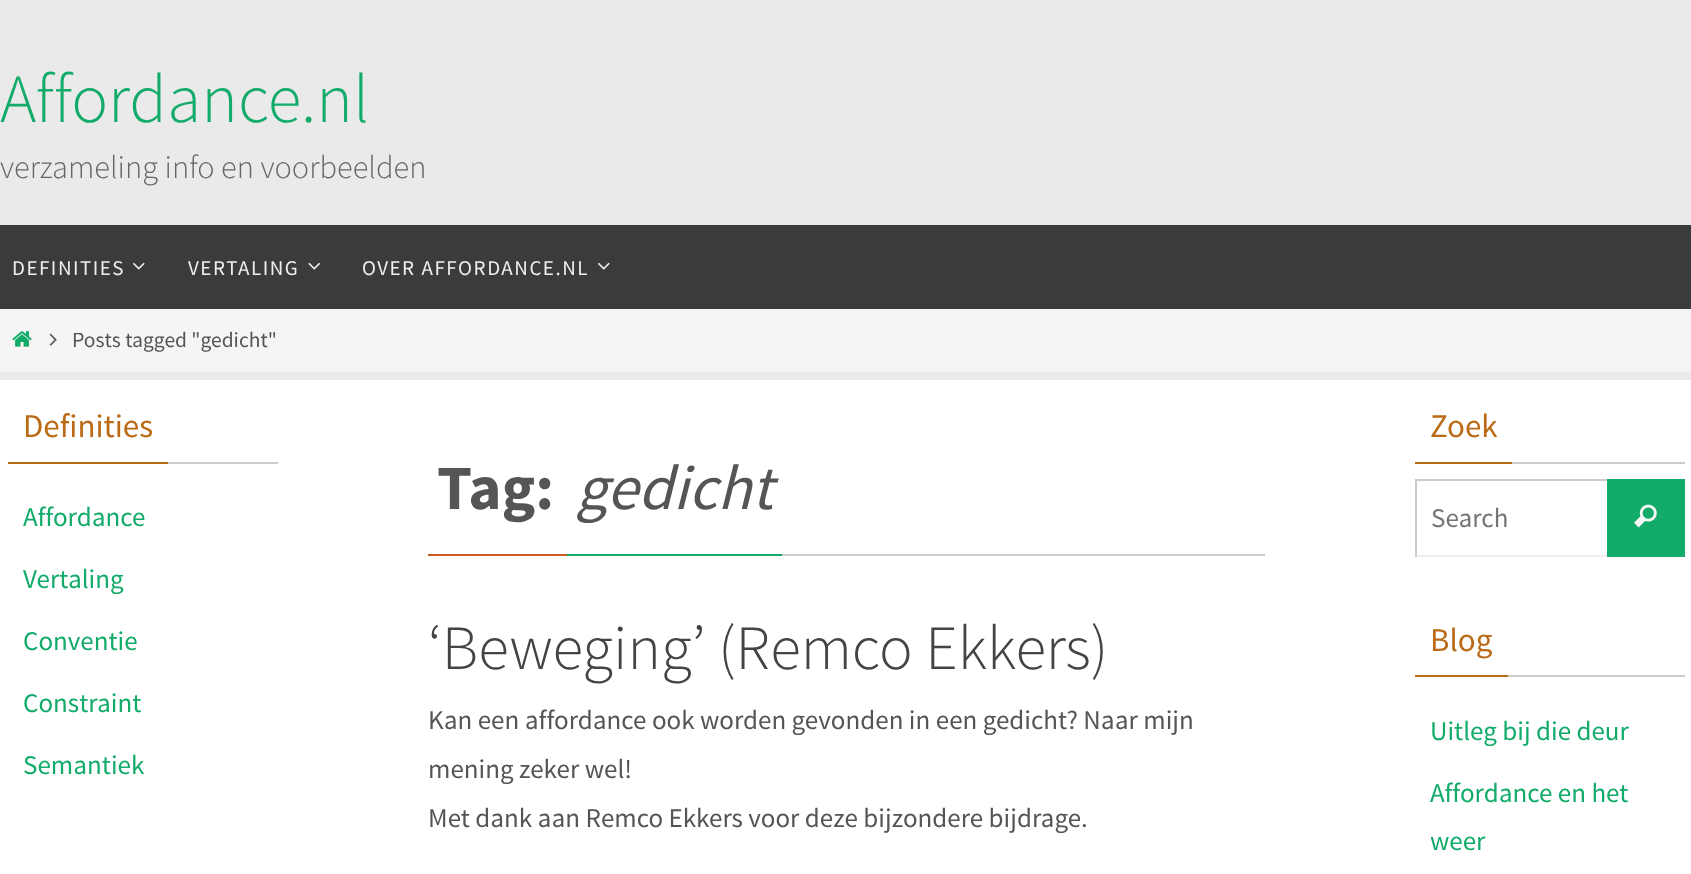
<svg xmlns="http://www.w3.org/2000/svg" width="1691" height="874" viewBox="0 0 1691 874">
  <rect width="100%" height="100%" fill="rgb(234,234,234)"/>
  <text x="0" y="122" font-family="Source Sans Pro" font-size="69" font-weight="300" fill="rgb(18,171,105)">Affordance.nl</text>
  <text x="0" y="178" font-family="Source Sans Pro" font-size="32.4" font-weight="300" fill="rgb(102,102,102)">verzameling info en voorbeelden</text>
  <rect x="0" y="225" width="1691" height="84" fill="rgb(58,59,61)"/>
  <text x="12" y="275" font-family="Source Sans Pro" font-size="21" letter-spacing="1.5" fill="rgb(238,238,238)">DEFINITIES</text>
  <image x="133" y="262" width="12" height="8" href="pic1.png"/>
  <text x="188" y="275" font-family="Source Sans Pro" font-size="21" letter-spacing="1.5" fill="rgb(238,238,238)">VERTALING</text>
  <image x="308" y="262" width="13" height="8" href="pic2.png"/>
  <text x="362" y="275" font-family="Source Sans Pro" font-size="21" letter-spacing="1.5" fill="rgb(238,238,238)">OVER AFFORDANCE.NL</text>
  <image x="598" y="262" width="12" height="8" href="pic1.png"/>
  <rect x="0" y="309" width="1691" height="63" fill="rgb(245,245,245)"/>
  <image x="12" y="331" width="20" height="16" href="pic3.png"/>
  <image x="49" y="333" width="8" height="13" href="pic4.png"/>
  <text x="72" y="347" font-family="Source Sans Pro" font-size="21.5" fill="rgb(85,85,85)">Posts tagged "gedicht"</text>
  <rect x="0" y="380" width="1691" height="494" fill="rgb(255,255,255)"/>
  <rect x="168" y="462" width="110" height="2" fill="rgb(204,204,204)"/>
  <rect x="8" y="462" width="160" height="2" fill="rgb(187,106,22)"/>
  <text x="23" y="437" font-family="Source Sans Pro" font-size="33" fill="rgb(187,106,22)">Definities</text>
  <g font-family="Source Sans Pro" font-size="27" fill="rgb(18,171,105)">
    <text x="23" y="526">Affordance</text>
    <text x="23" y="588">Vertaling</text>
    <text x="23" y="650">Conventie</text>
    <text x="23" y="712">Constraint</text>
    <text x="23" y="774">Semantiek</text>
  </g>
  <rect x="782" y="554" width="483" height="2" fill="rgb(204,204,204)"/>
  <rect x="428" y="554" width="139" height="2" fill="rgb(203,89,32)"/>
  <text x="437" y="509" font-family="Source Sans Pro" font-size="63" font-weight="bold" fill="rgb(85,85,85)">Tag:</text>
  <rect x="567" y="554" width="215" height="2" fill="rgb(18,171,105)"/>
  <text x="576" y="509" font-family="Source Sans Pro" font-size="63" font-style="italic" fill="rgb(85,85,85)">gedicht</text>
  <text x="428" y="669" font-family="Source Sans Pro" font-size="63" font-weight="300" fill="rgb(68,68,68)">‘Beweging’ (Remco Ekkers)</text>
  <g font-family="Source Sans Pro" font-size="27" fill="rgb(85,85,85)">
    <text>
      <tspan x="428" y="729">Kan een affordance ook worden gevonden in een gedicht? Naar mijn</tspan>
      <tspan x="428" y="778">mening zeker wel!</tspan>
      <tspan x="428" y="827">Met dank aan Remco Ekkers voor deze bijzondere bijdrage.</tspan>
    </text>
  </g>
  <rect x="1512" y="462" width="173" height="2" fill="rgb(204,204,204)"/>
  <rect x="1415" y="462" width="97" height="2" fill="rgb(187,106,22)"/>
  <text x="1430" y="437" font-family="Source Sans Pro" font-size="33" fill="rgb(187,106,22)">Zoek</text>
  <rect x="1607" y="479" width="78" height="78" fill="rgb(18,171,105)"/>
  <rect x="1415" y="479" width="192" height="2" fill="rgb(204,204,204)"/>
  <rect x="1415" y="555" width="192" height="2" fill="rgb(238,238,238)"/>
  <rect x="1415" y="479" width="2" height="78" fill="rgb(204,204,204)"/>
  <text x="1431" y="527" font-family="Source Sans Pro" font-size="27" fill="rgb(117,117,117)">Search</text>
  <image x="1634" y="504" width="23" height="24" href="pic5.png"/>
  <rect x="1508" y="675" width="177" height="2" fill="rgb(204,204,204)"/>
  <rect x="1415" y="675" width="93" height="2" fill="rgb(187,106,22)"/>
  <text x="1430" y="651" font-family="Source Sans Pro" font-size="33" fill="rgb(187,106,22)">Blog</text>
  <g font-family="Source Sans Pro" font-size="27" fill="rgb(18,171,105)">
    <text x="1430" y="740">Uitleg bij die deur</text>
    <text>
      <tspan x="1430" y="802">Affordance en het</tspan>
      <tspan x="1430" y="850">weer</tspan>
    </text>
  </g>
</svg>
